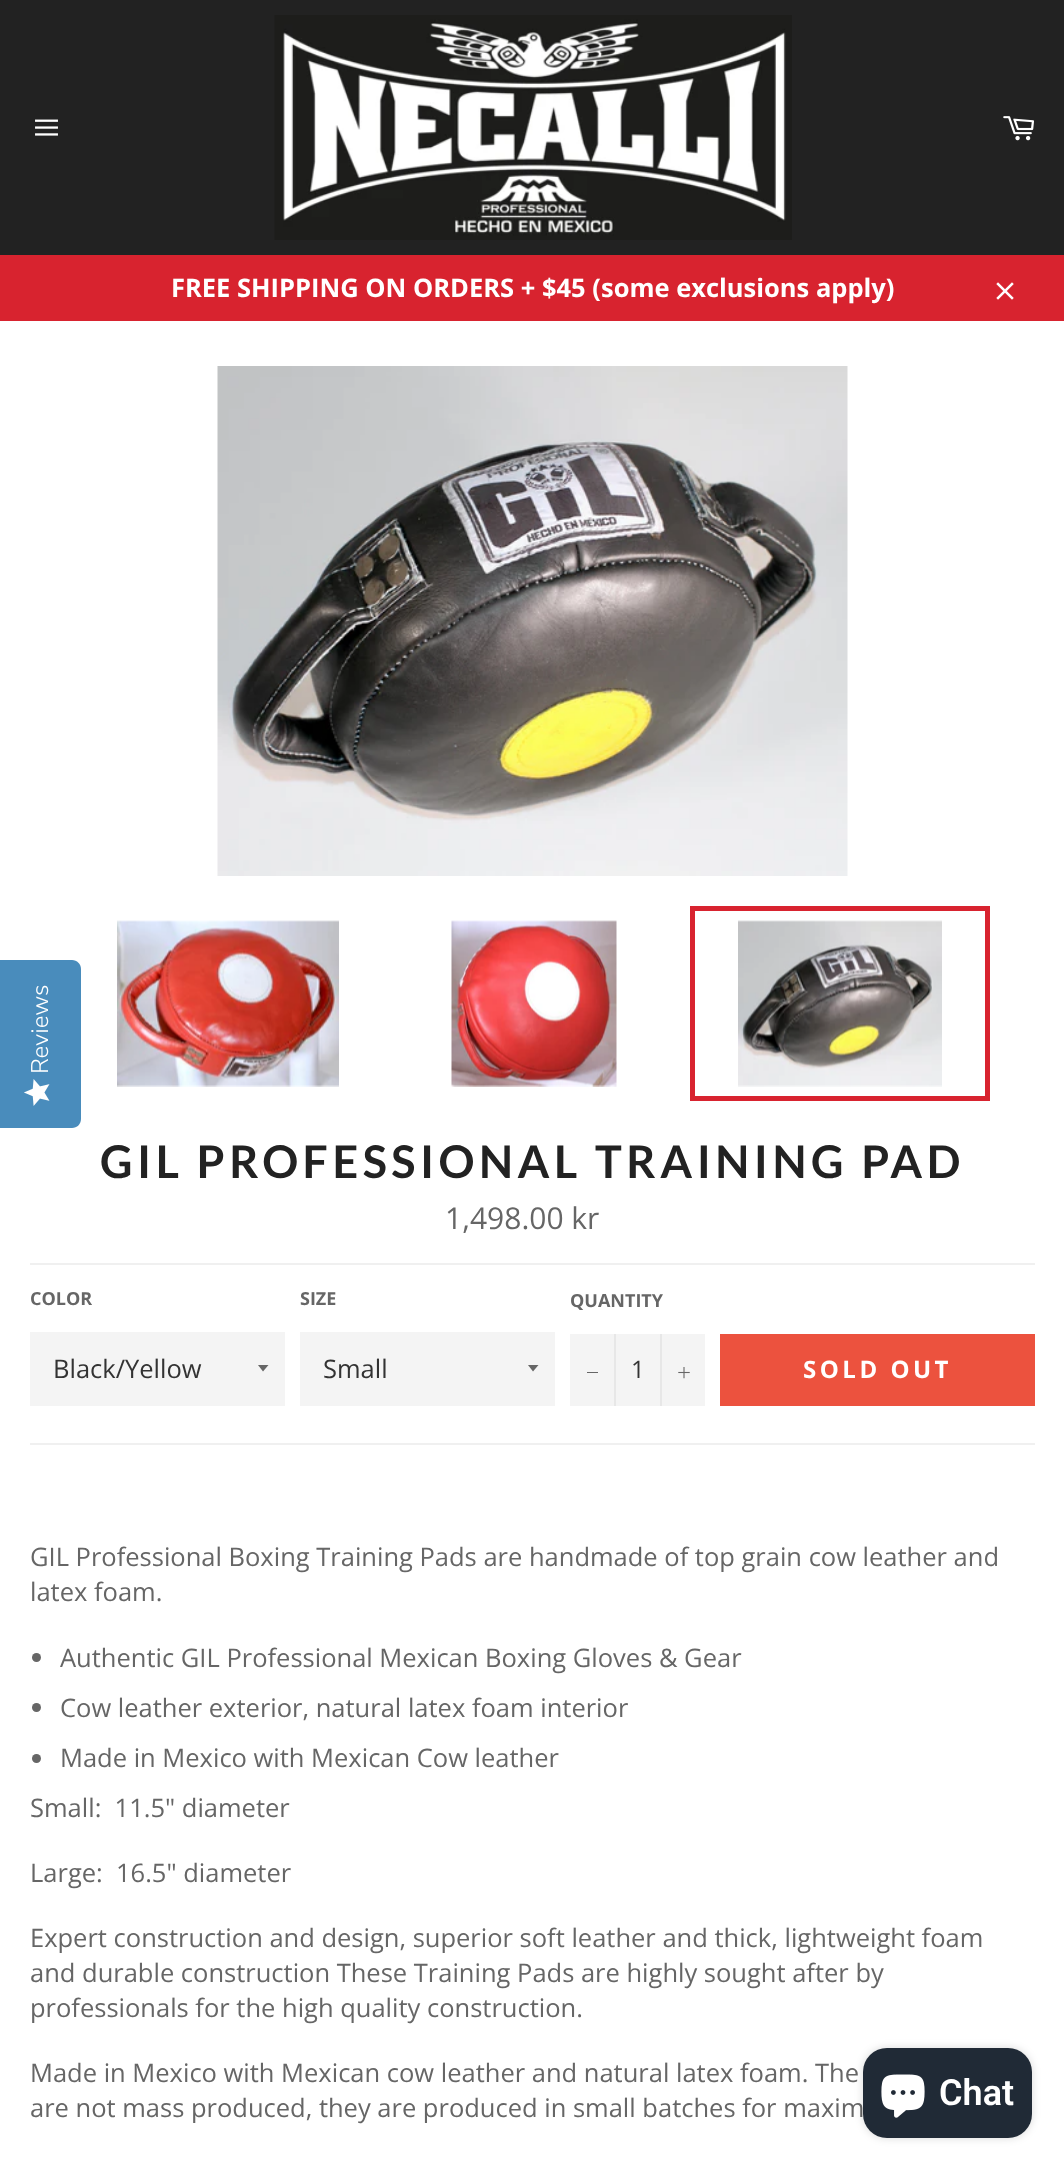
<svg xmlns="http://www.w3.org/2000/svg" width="1064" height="2168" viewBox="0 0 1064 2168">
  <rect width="100%" height="100%" fill="rgb(255,255,255)"/>
  <rect x="0" y="0" width="1064" height="255" fill="rgb(34,34,34)"/>
  <image x="35" y="119" width="23" height="17" href="pic1.png"/>
  <image x="274" y="15" width="518" height="225" href="pic2.png"/>
  <image x="1003" y="116" width="31" height="25" href="pic3.png"/>
  <rect x="0" y="255" width="1064" height="66" fill="rgb(216,35,47)"/>
  <text x="171" y="297" font-family="Open Sans" font-size="25.5" font-weight="bold" fill="rgb(255,255,255)">FREE SHIPPING ON ORDERS + $45 (some exclusions apply)</text>
  <image x="996" y="282" width="18" height="18" href="pic4.png"/>
  <image x="217" y="366" width="631" height="510" href="pic5.png"/>
  <image x="117" y="920" width="222" height="167" href="pic6.png"/>
  <image x="451" y="920" width="166" height="167" href="pic7.png"/>
  <image x="738" y="920" width="204" height="167" href="pic8.png"/>
  <rect x="692.5" y="908.5" width="295" height="190" fill="none" stroke="rgb(216,35,47)" stroke-width="5"/>
  <text x="100" y="1178" font-family="Lato" font-size="45" font-weight="bold" letter-spacing="4.5" fill="rgb(34,34,34)">GIL PROFESSIONAL TRAINING PAD</text>
  <text x="445" y="1229" font-family="Open Sans" font-size="30" fill="rgb(102,102,102)">1,498.00 kr</text>
  <rect x="30" y="1263" width="1005" height="2" fill="rgb(240,240,240)"/>
  <text x="30" y="1305" font-family="Open Sans" font-size="18" font-weight="bold" fill="rgb(102,102,102)">COLOR</text>
  <rect x="30" y="1332" width="255" height="74" fill="rgb(244,244,244)"/>
  <path d="M258 1365L263 1371.5L268.5 1365Z" fill="rgb(102,102,102)"/>
  <text x="53" y="1378" font-family="Open Sans" font-size="25.5" fill="rgb(51,51,51)">Black/Yellow</text>
  <text x="300" y="1305" font-family="Open Sans" font-size="18" font-weight="bold" fill="rgb(102,102,102)">SIZE</text>
  <rect x="300" y="1332" width="255" height="74" fill="rgb(244,244,244)"/>
  <path d="M528 1365L533 1371.5L538.5 1365Z" fill="rgb(102,102,102)"/>
  <text x="323" y="1378" font-family="Open Sans" font-size="25.5" fill="rgb(51,51,51)">Small</text>
  <text x="570" y="1307" font-family="Open Sans" font-size="18" font-weight="bold" fill="rgb(102,102,102)">QUANTITY</text>
  <rect x="570" y="1334" width="135" height="72" fill="rgb(244,244,244)"/>
  <rect x="614" y="1334" width="2" height="72" fill="rgb(231,231,231)"/>
  <rect x="587" y="1372" width="11" height="1" fill="rgb(102,102,102)"/>
  <text x="631" y="1378" font-family="Open Sans" font-size="24" fill="rgb(51,51,51)">1</text>
  <rect x="660" y="1334" width="2" height="72" fill="rgb(231,231,231)"/>
  <image x="678" y="1367" width="12" height="12" href="pic9.png"/>
  <rect x="720" y="1334" width="315" height="72" fill="rgb(236,82,62)"/>
  <text x="803" y="1378" font-family="Open Sans" font-size="24" font-weight="bold" letter-spacing="3.5" fill="rgb(255,255,255)">SOLD OUT</text>
  <rect x="30" y="1443" width="1005" height="2" fill="rgb(240,240,240)"/>
  <g font-family="Open Sans" font-size="25.5" fill="rgb(102,102,102)">
    <text>
      <tspan x="30" y="1566">GIL Professional Boxing Training Pads are handmade of top grain cow leather and</tspan>
      <tspan x="30" y="1601">latex foam.</tspan>
    </text>
  </g>
  <circle cx="36.5" cy="1657.5" r="4.5" fill="rgb(102,102,102)"/>
  <text x="60" y="1667" font-family="Open Sans" font-size="25.5" fill="rgb(102,102,102)">Authentic GIL Professional Mexican Boxing Gloves &amp; Gear</text>
  <circle cx="36.5" cy="1707.5" r="4.5" fill="rgb(102,102,102)"/>
  <text x="60" y="1717" font-family="Open Sans" font-size="25.5" fill="rgb(102,102,102)">Cow leather exterior, natural latex foam interior</text>
  <circle cx="36.5" cy="1758.5" r="4.5" fill="rgb(102,102,102)"/>
  <g font-family="Open Sans" font-size="25.5" fill="rgb(102,102,102)">
    <text x="60" y="1767">Made in Mexico with Mexican Cow leather</text>
    <text x="30" y="1817" xml:space="preserve">Small:  11.5" diameter</text>
    <text x="30" y="1882">Large:</text>
    <text x="116" y="1882">16.5" diameter</text>
    <text>
      <tspan x="30" y="1947">Expert construction and design, superior soft leather and thick, lightweight foam</tspan>
      <tspan x="30" y="1982">and durable construction These Training Pads are highly sought after by</tspan>
      <tspan x="30" y="2017">professionals for the high quality construction.</tspan>
    </text>
    <text>
      <tspan x="30" y="2082">Made in Mexico with Mexican cow leather and natural latex foam. The</tspan>
      <tspan x="30" y="2117">are not mass produced, they are produced in small batches for maxim</tspan>
    </text>
  </g>
  <path d="M0 1128V960H72C77 960 81 964 81 969V1119C81 1124 77 1128 72 1128Z" fill="rgb(73,140,188)"/>
  <text x="48" y="1074" transform="rotate(-90 48 1074)" font-family="Nunito Sans" font-size="24" font-weight="300" fill="rgb(255,255,255)">Reviews</text>
  <image x="24" y="1079" width="26" height="27" href="pic10.png"/>
  <rect x="863" y="2048" width="169" height="90" rx="24" fill="rgba(0,0,0,0.15)" filter="blur(4px)"/>
  <rect x="863" y="2048" width="169" height="90" rx="24" fill="rgb(32,42,54)"/>
  <image x="881" y="2074" width="44" height="44" href="pic11.png"/>
  <text x="939" y="2105" font-family="Roboto" font-size="36" font-weight="600" fill="rgb(255,255,255)">Chat</text>
</svg>
